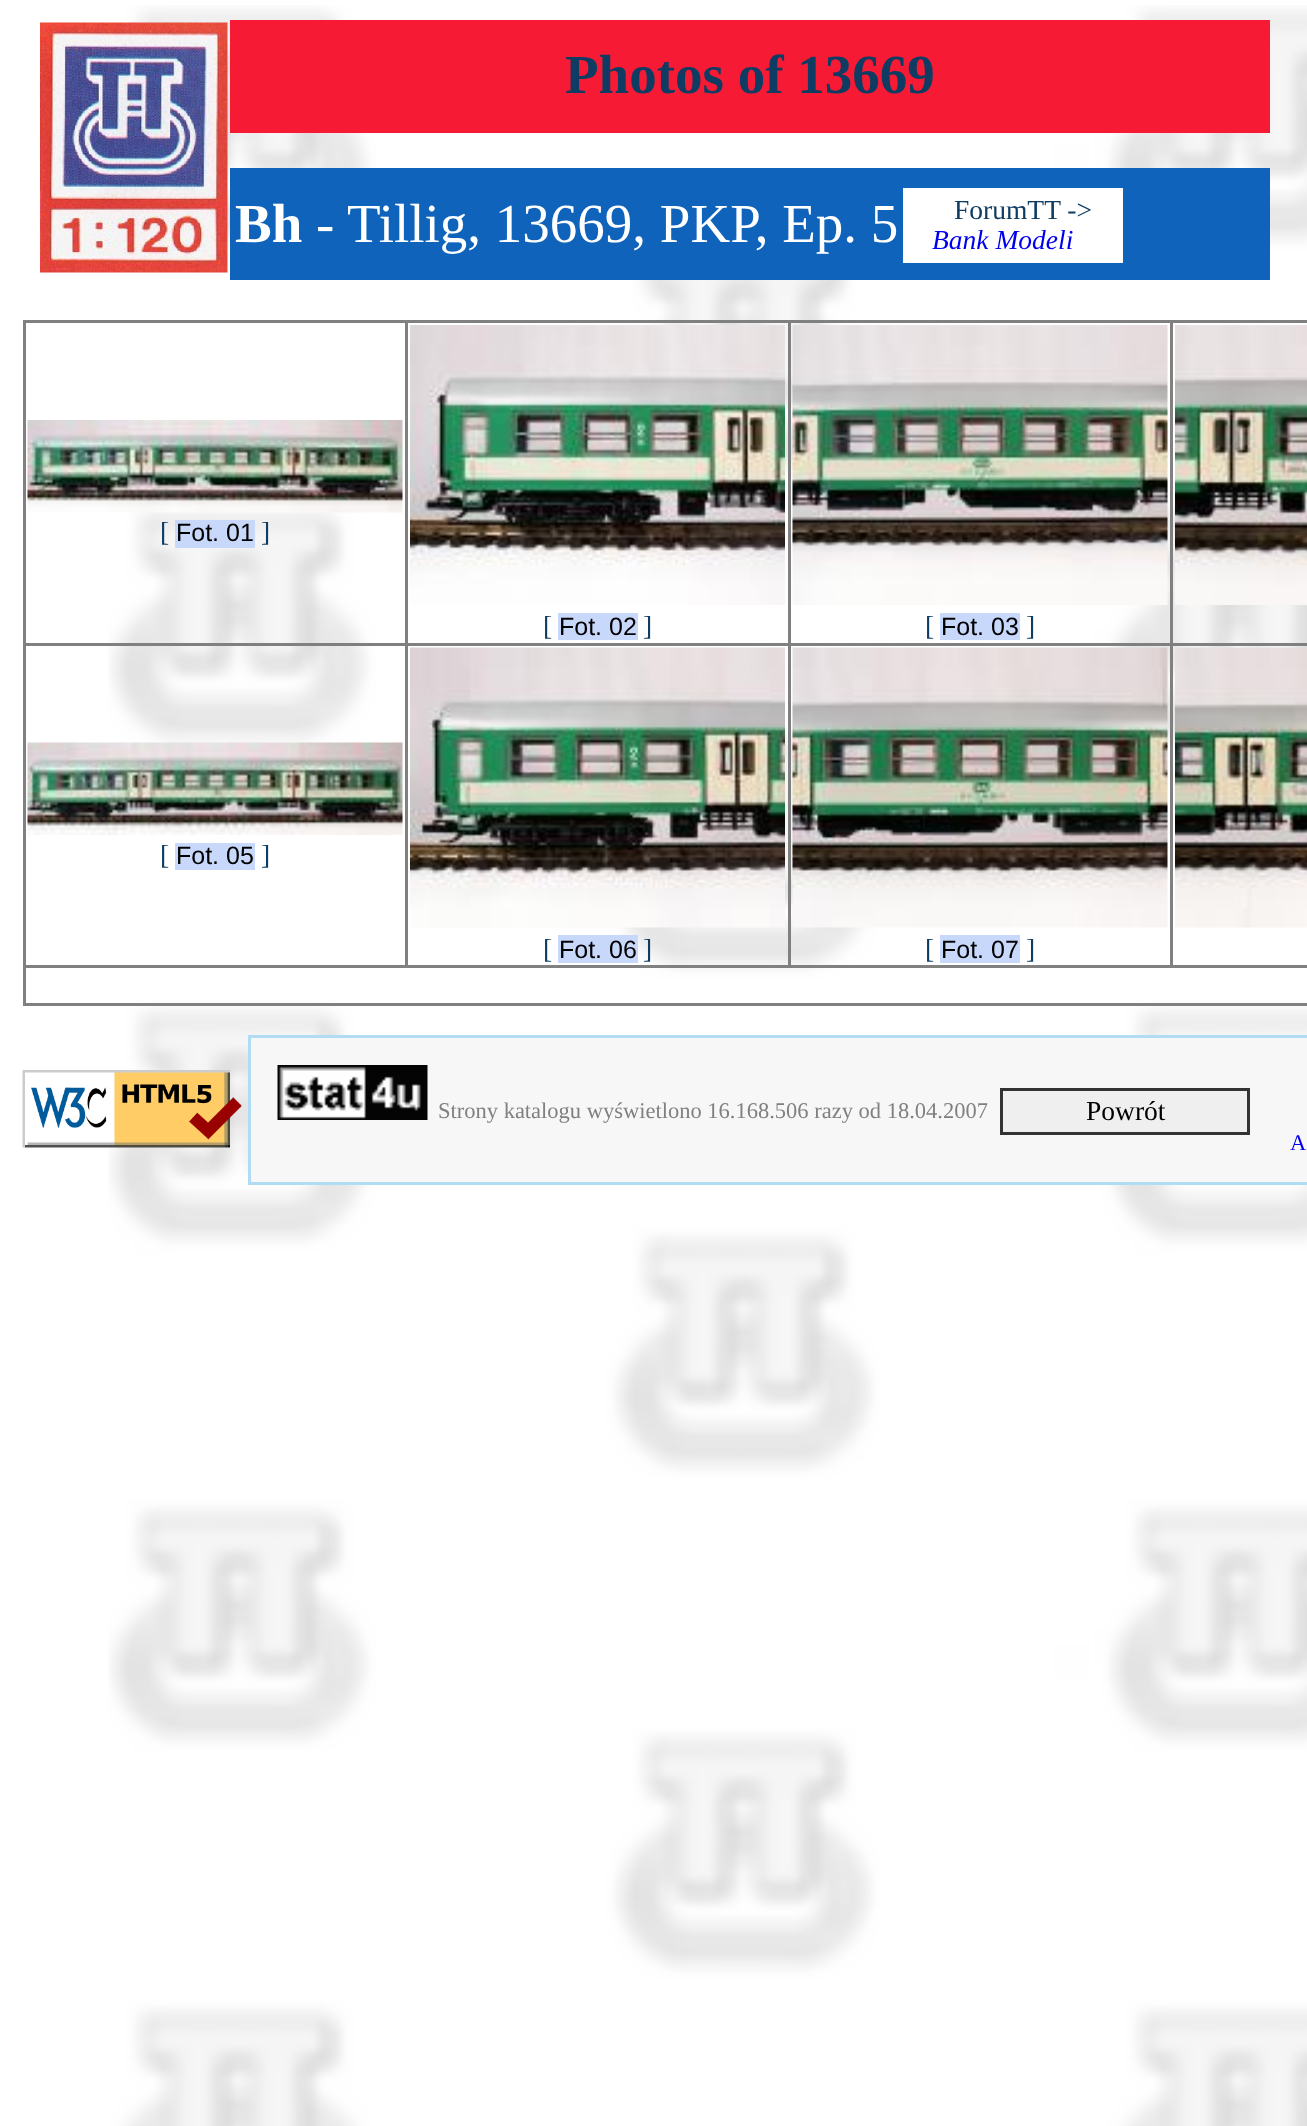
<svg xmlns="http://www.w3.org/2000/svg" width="1307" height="2126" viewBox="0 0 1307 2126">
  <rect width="100%" height="100%" fill="rgb(255,255,255)"/>
  <image x="108" y="5" width="1199" height="2121" href="pic1.png"/>
  <image x="40" y="22" width="188" height="251" href="pic2.png"/>
  <rect x="230" y="20" width="1040" height="113" fill="rgb(246,26,52)"/>
  <text x="565" y="93" font-family="Liberation Serif" font-size="55" font-weight="bold" fill="rgb(14,60,99)">Photos of 13669</text>
  <rect x="230" y="168" width="1040" height="112" fill="rgb(15,99,187)"/>
  <text x="235" y="242" font-family="Liberation Serif" font-size="55" font-weight="bold" fill="rgb(255,255,255)">Bh</text>
  <text x="316" y="242" font-family="Liberation Serif" font-size="55" fill="rgb(255,255,255)">- Tillig, 13669, PKP, Ep. 5</text>
  <rect x="903" y="188" width="220" height="75" fill="rgb(255,255,255)"/>
  <text x="954" y="219" font-family="Liberation Serif" font-size="27.5" fill="rgb(14,60,99)">ForumTT -&gt;</text>
  <text x="932" y="249" font-family="Liberation Serif" font-size="27.5" font-style="italic" fill="rgb(0,0,238)">Bank Modeli</text>
  <rect x="23" y="320" width="1284" height="3" fill="rgb(128,128,128)"/>
  <rect x="23" y="1003" width="1284" height="3" fill="rgb(128,128,128)"/>
  <rect x="23" y="320" width="3" height="685" fill="rgb(128,128,128)"/>
  <image x="27" y="420" width="376" height="93" href="pic3.png"/>
  <text x="160" y="541" font-family="Liberation Serif" font-size="27.5" fill="rgb(14,60,99)">[</text>
  <rect x="175" y="520" width="80" height="28" fill="rgb(200,216,250)"/>
  <text x="176" y="541" font-family="Liberation Sans" font-size="25" fill="rgb(0,0,0)">Fot. 01</text>
  <text x="261" y="541" font-family="Liberation Serif" font-size="27.5" fill="rgb(14,60,99)">]</text>
  <rect x="1170" y="643" width="137" height="3" fill="rgb(128,128,128)"/>
  <rect x="1170" y="965" width="137" height="3" fill="rgb(128,128,128)"/>
  <rect x="1170" y="643" width="3" height="325" fill="rgb(128,128,128)"/>
  <rect x="788" y="643" width="385" height="3" fill="rgb(128,128,128)"/>
  <rect x="1170" y="320" width="3" height="325" fill="rgb(128,128,128)"/>
  <image x="1175" y="325" width="132" height="280" href="pic4.png"/>
  <rect x="788" y="965" width="385" height="3" fill="rgb(128,128,128)"/>
  <rect x="788" y="643" width="3" height="325" fill="rgb(128,128,128)"/>
  <rect x="405" y="643" width="385" height="3" fill="rgb(128,128,128)"/>
  <rect x="405" y="965" width="385" height="3" fill="rgb(128,128,128)"/>
  <rect x="405" y="643" width="3" height="325" fill="rgb(128,128,128)"/>
  <rect x="23" y="643" width="385" height="3" fill="rgb(128,128,128)"/>
  <rect x="405" y="320" width="3" height="325" fill="rgb(128,128,128)"/>
  <image x="410" y="325" width="375" height="280" href="pic5.png"/>
  <text x="543" y="635" font-family="Liberation Serif" font-size="27.5" fill="rgb(14,60,99)">[</text>
  <rect x="558" y="613" width="80" height="27" fill="rgb(200,216,250)"/>
  <text x="559" y="635" font-family="Liberation Sans" font-size="25" fill="rgb(0,0,0)">Fot. 02</text>
  <text x="643" y="635" font-family="Liberation Serif" font-size="27.5" fill="rgb(14,60,99)">]</text>
  <rect x="788" y="320" width="3" height="325" fill="rgb(128,128,128)"/>
  <image x="792" y="325" width="376" height="280" href="pic6.png"/>
  <text x="925" y="635" font-family="Liberation Serif" font-size="27.5" fill="rgb(14,60,99)">[</text>
  <rect x="940" y="613" width="80" height="27" fill="rgb(200,216,250)"/>
  <text x="941" y="635" font-family="Liberation Sans" font-size="25" fill="rgb(0,0,0)">Fot. 03</text>
  <text x="1026" y="635" font-family="Liberation Serif" font-size="27.5" fill="rgb(14,60,99)">]</text>
  <rect x="23" y="965" width="385" height="3" fill="rgb(128,128,128)"/>
  <image x="27" y="742" width="376" height="93" href="pic7.png"/>
  <text x="160" y="864" font-family="Liberation Serif" font-size="27.5" fill="rgb(14,60,99)">[</text>
  <rect x="175" y="843" width="80" height="27" fill="rgb(200,216,250)"/>
  <text x="176" y="864" font-family="Liberation Sans" font-size="25" fill="rgb(0,0,0)">Fot. 05</text>
  <text x="261" y="864" font-family="Liberation Serif" font-size="27.5" fill="rgb(14,60,99)">]</text>
  <image x="1175" y="647" width="132" height="281" href="pic8.png"/>
  <image x="410" y="647" width="375" height="281" href="pic9.png"/>
  <text x="543" y="958" font-family="Liberation Serif" font-size="27.5" fill="rgb(14,60,99)">[</text>
  <rect x="558" y="935" width="80" height="28" fill="rgb(200,216,250)"/>
  <text x="559" y="958" font-family="Liberation Sans" font-size="25" fill="rgb(0,0,0)">Fot. 06</text>
  <text x="643" y="958" font-family="Liberation Serif" font-size="27.5" fill="rgb(14,60,99)">]</text>
  <image x="792" y="647" width="376" height="281" href="pic10.png"/>
  <text x="925" y="958" font-family="Liberation Serif" font-size="27.5" fill="rgb(14,60,99)">[</text>
  <rect x="940" y="935" width="80" height="28" fill="rgb(200,216,250)"/>
  <text x="941" y="958" font-family="Liberation Sans" font-size="25" fill="rgb(0,0,0)">Fot. 07</text>
  <text x="1026" y="958" font-family="Liberation Serif" font-size="27.5" fill="rgb(14,60,99)">]</text>
  <image x="22" y="1070" width="220" height="78" href="pic11.png"/>
  <rect x="249.5" y="1036.5" width="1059" height="147" fill="rgb(247,247,247)" stroke="rgb(177,220,243)" stroke-width="3"/>
  <image x="277" y="1065" width="151" height="55" href="pic12.png"/>
  <text x="438" y="1118" font-family="Liberation Serif" font-size="22.5" fill="rgb(128,128,128)">Strony katalogu wyświetlono 16.168.506 razy od 18.04.2007</text>
  <rect x="1001.5" y="1089.5" width="247" height="44" fill="rgb(239,239,239)" stroke="rgb(51,51,51)" stroke-width="3"/>
  <text x="1086" y="1120" font-family="Liberation Serif" font-size="27.5" fill="rgb(0,0,0)">Powrót</text>
  <text x="1290" y="1150" font-family="Liberation Serif" font-size="22.5" fill="rgb(0,0,238)">A</text>
</svg>
